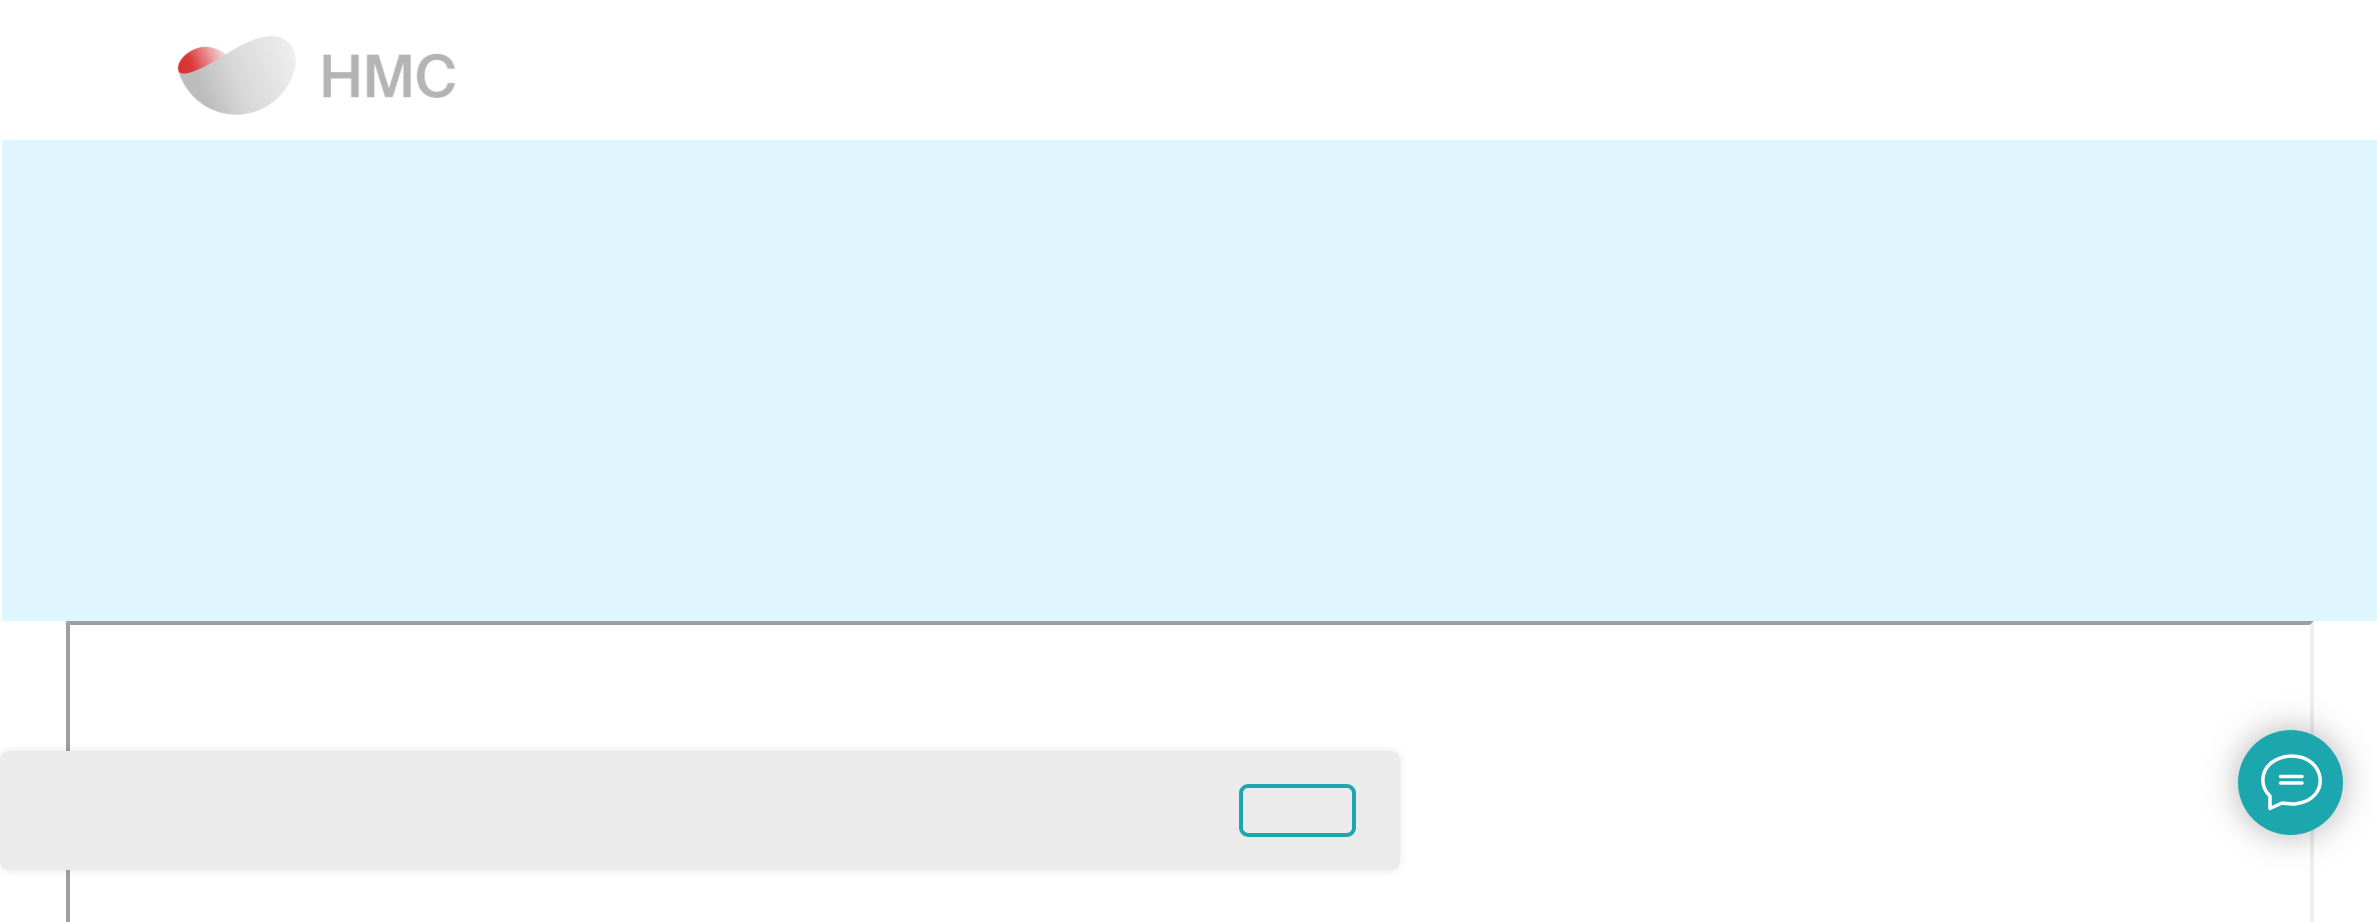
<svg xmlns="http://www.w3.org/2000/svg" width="2377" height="922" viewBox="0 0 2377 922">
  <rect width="100%" height="100%" fill="rgb(255,255,255)"/>
  <image x="177" y="36" width="278" height="79" href="pic1.png"/>
  <rect x="2" y="140" width="2375" height="481" fill="rgb(223,246,254)"/>
  <path d="M66 621H2314L2310 625H70Z" fill="rgb(159,159,159)"/>
  <path d="M66 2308V621L70 625V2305Z" fill="rgb(159,159,159)"/>
  <path d="M2314 621V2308L2310 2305V625Z" fill="rgb(238,238,238)"/>
  <rect x="0" y="751" width="1400" height="119" rx="9" fill="rgba(0,0,0,0.1)" filter="blur(4.5px)"/>
  <rect x="0" y="751" width="1400" height="119" rx="9" fill="rgb(235,235,235)"/>
  <rect x="1241" y="786" width="113" height="49" rx="7" fill="none" stroke="rgb(28,166,173)" stroke-width="4"/>
  <rect x="2238" y="730" width="105" height="105" rx="52.5" fill="rgba(0,0,0,0.3)" filter="blur(17.5px)"/>
  <circle cx="2290.5" cy="782.5" r="52.5" fill="rgb(28,166,173)"/>
  <path d="M2280.5 776.5H2302M2280.5 783H2302M2269.5 795.5C2260 786 2261 771.5 2271 763C2277 758.5 2284.5 756 2291.5 756C2325.5 756 2331.5 798 2297.5 803.5C2291 805 2288 803.5 2282 803L2270 808.5V796Z" fill="none" stroke="rgb(255,255,255)" stroke-width="3.5" stroke-linecap="round" stroke-linejoin="round"/>
</svg>
